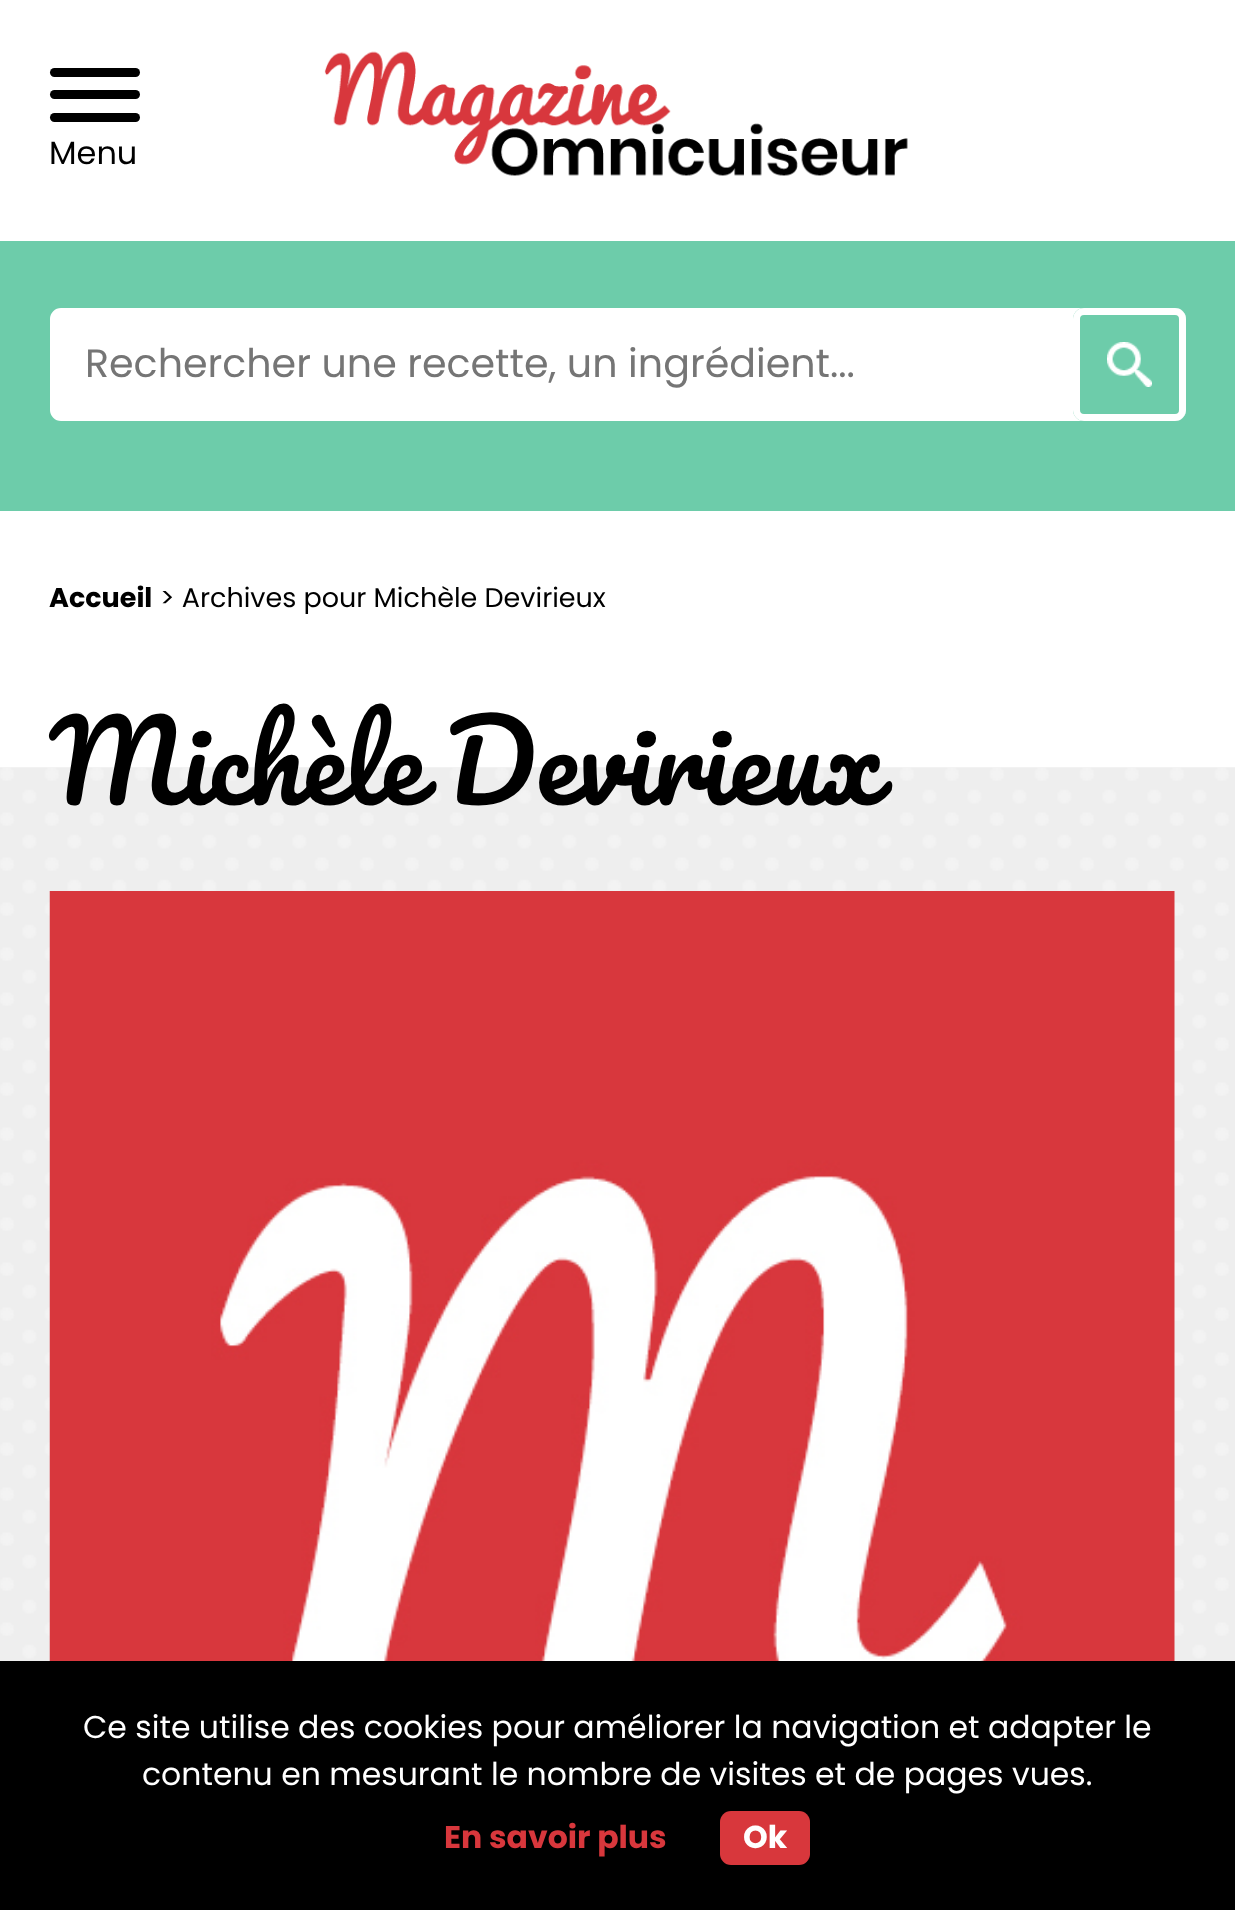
<svg xmlns="http://www.w3.org/2000/svg" width="1235" height="1910" viewBox="0 0 1235 1910">
  <style>*{font-kerning:none!important;font-variant-ligatures:none!important}</style>
  <rect width="100%" height="100%" fill="rgb(255,255,255)"/>
  <rect x="50" y="90" width="90" height="9" rx="4.5" fill="rgb(0,0,0)"/>
  <rect x="50" y="68" width="90" height="9" rx="4.5" fill="rgb(0,0,0)"/>
  <rect x="50" y="113" width="90" height="9" rx="4.5" fill="rgb(0,0,0)"/>
  <text x="49" y="164" font-family="Poppins" font-size="32" fill="rgb(0,0,0)">Menu</text>
  <image x="324" y="51" width="584" height="125" href="pic1.png"/>
  <rect x="0" y="241" width="1235" height="270" fill="rgb(109,204,170)"/>
  <rect x="51" y="309" width="1134" height="111" rx="10" fill="rgb(255,255,255)" stroke="rgb(255,255,255)" stroke-width="2"/>
  <text x="85" y="377" font-family="Poppins" font-size="39.6" fill="rgb(117,117,117)">Rechercher une recette, un ingrédient...</text>
  <rect x="1073" y="308" width="113" height="113" rx="11" fill="rgb(109,204,170)"/>
  <image x="1107" y="342" width="45" height="45" href="pic2.png"/>
  <rect x="1076.5" y="311.5" width="106" height="106" rx="7.5" fill="none" stroke="rgb(255,255,255)" stroke-width="7"/>
  <text x="49" y="607" font-family="Poppins" font-size="27" font-weight="bold" fill="rgb(0,0,0)">Accueil</text>
  <text x="160" y="607" font-family="Poppins" font-size="27" fill="rgb(0,0,0)">&gt; Archives pour Michèle Devirieux</text>
  <image x="0" y="767" width="1235" height="894" href="pic3.png"/>
  <text x="49" y="805" word-spacing="-6" font-family="Pacifico" font-size="108" fill="rgb(0,0,0)">Michèle Devirieux</text>
  <image x="49" y="891" width="1126" height="770" href="pic4.png"/>
  <rect x="0" y="1661" width="1235" height="249" fill="rgb(0,0,0)"/>
  <g font-family="Poppins" font-size="31.5" fill="rgb(255,255,255)">
    <text x="83" y="1738">Ce site utilise des cookies pour améliorer la navigation et adapter le</text>
    <text x="142" y="1785">contenu en mesurant le nombre de visites et de pages vues.</text>
  </g>
  <text x="444" y="1848" font-family="Poppins" font-size="31.5" font-weight="bold" fill="rgb(216,55,60)">En savoir plus</text>
  <rect x="720" y="1811" width="90" height="54" rx="11" fill="rgb(216,55,60)"/>
  <text x="743" y="1848" font-family="Poppins" font-size="31.5" font-weight="bold" fill="rgb(255,255,255)">Ok</text>
</svg>
